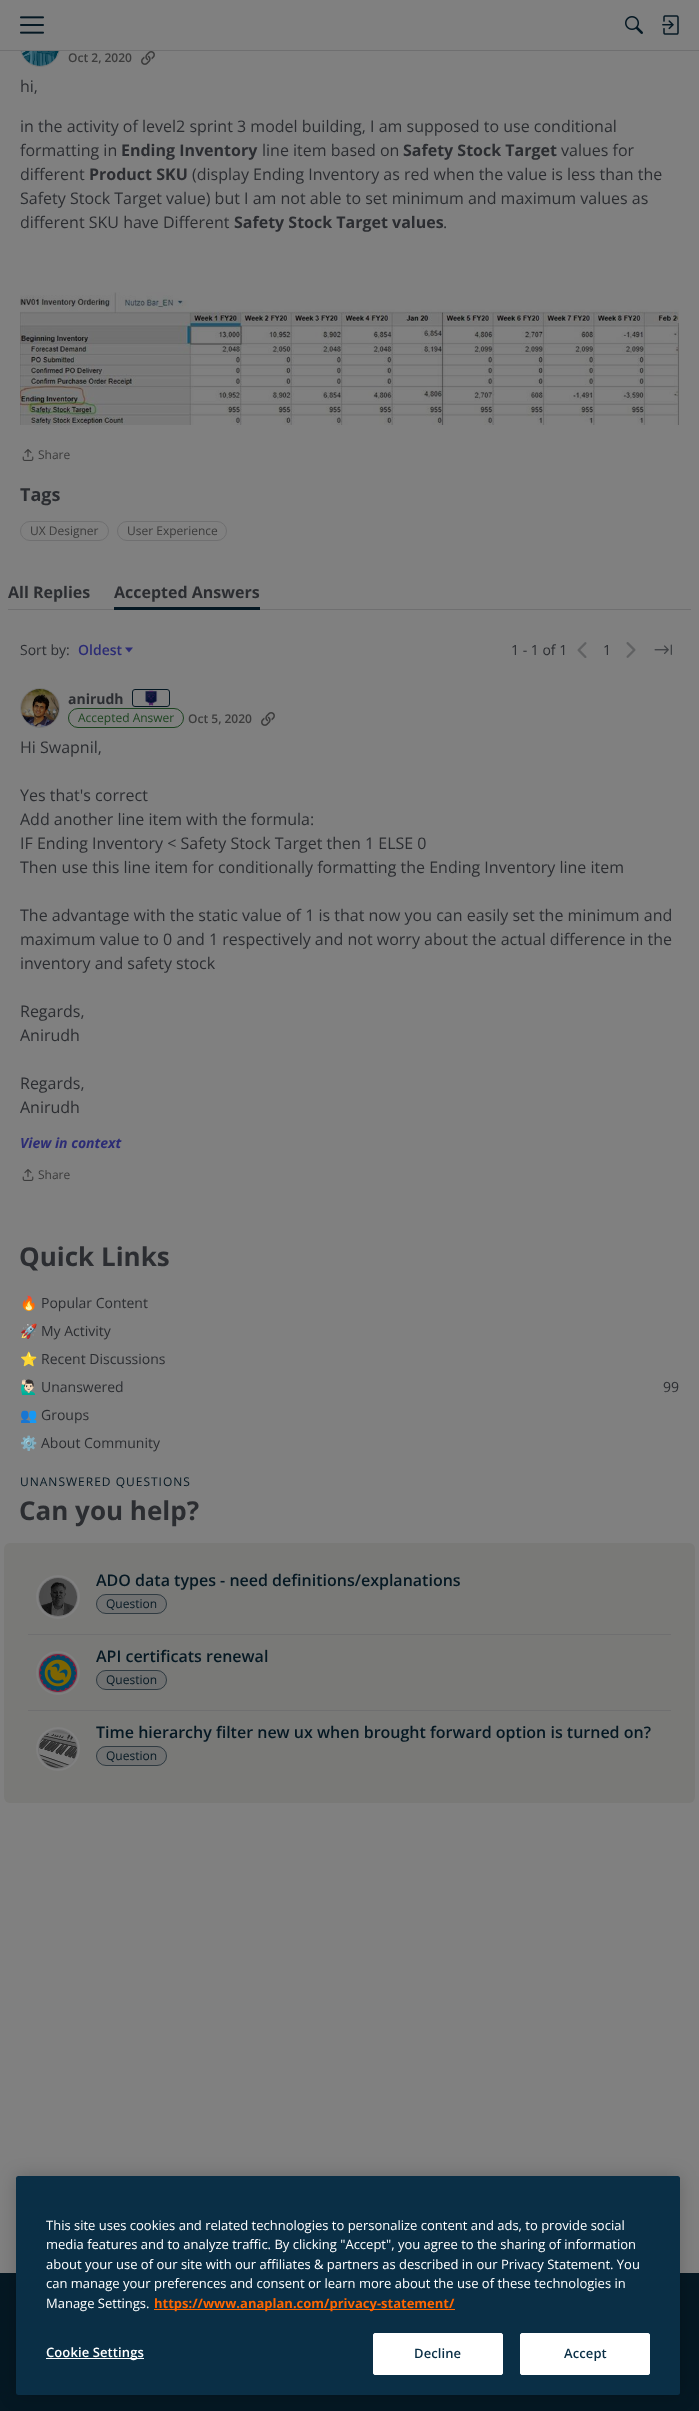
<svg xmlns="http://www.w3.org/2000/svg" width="699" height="2411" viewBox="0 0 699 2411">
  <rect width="100%" height="100%" fill="rgb(128,128,128)"/>
  <circle cx="40" cy="47" r="19.5" fill="none" stroke="rgb(115,115,116)"/>
  <rect x="0" y="50" width="699" height="1" fill="rgb(111,111,112)"/>
  <rect x="20" y="27" width="40" height="23" fill="rgb(128,128,128)"/>
  <image x="20" y="16" width="24" height="18" href="pic1.png"/>
  <image x="625" y="16" width="18" height="18" href="pic2.png"/>
  <image x="662" y="15" width="17" height="20" href="pic3.png"/>
  <image x="21" y="51" width="38" height="15" href="pic4.png"/>
  <text x="68" y="62" font-family="Open Sans" font-size="12" font-weight="600" fill="rgb(59,59,59)">Oct 2, 2020</text>
  <image x="141" y="51" width="14" height="14" href="pic5.png"/>
  <g font-family="Open Sans" font-size="16" fill="rgb(43,45,49)">
    <text x="20" y="92">hi,</text>
    <text>
      <tspan x="20" y="132">in the activity of level2 sprint 3 model building, I am supposed to use conditional</tspan>
      <tspan x="20" y="156">formatting in</tspan>
    </text>
  </g>
  <text x="121" y="156" font-family="Open Sans" font-size="16" font-weight="bold" fill="rgb(43,45,49)">Ending Inventory</text>
  <text x="262" y="156" font-family="Open Sans" font-size="16" fill="rgb(43,45,49)">line item based on</text>
  <text x="403" y="156" font-family="Open Sans" font-size="16" font-weight="bold" fill="rgb(43,45,49)">Safety Stock Target</text>
  <g font-family="Open Sans" font-size="16" fill="rgb(43,45,49)">
    <text x="561" y="156">values for</text>
    <text x="20" y="180">different</text>
  </g>
  <text x="89" y="180" font-family="Open Sans" font-size="16" font-weight="bold" fill="rgb(43,45,49)">Product SKU</text>
  <g font-family="Open Sans" font-size="16" fill="rgb(43,45,49)">
    <text x="192" y="180">(display Ending Inventory as red when the value is less than the</text>
    <text>
      <tspan x="20" y="204">Safety Stock Target value) but I am not able to set minimum and maximum values as</tspan>
      <tspan x="20" y="228">different SKU have Different</tspan>
    </text>
  </g>
  <text x="234" y="228" font-family="Open Sans" font-size="16" font-weight="bold" fill="rgb(43,45,49)">Safety Stock Target values</text>
  <text x="443" y="228" font-family="Open Sans" font-size="16" fill="rgb(43,45,49)">.</text>
  <image x="20" y="292" width="659" height="133" href="pic6.png"/>
  <image x="22" y="449" width="12" height="12" href="pic7.png"/>
  <text x="38" y="459" font-family="Open Sans" font-size="12" fill="rgb(59,59,59)">Share</text>
  <text x="20" y="501" font-family="Open Sans" font-size="18" font-weight="bold" fill="rgb(43,45,49)">Tags</text>
  <rect x="20.5" y="521.5" width="88" height="19" rx="9.5" fill="none" stroke="rgb(111,111,112)"/>
  <text x="30" y="535" font-family="Open Sans" font-size="12" fill="rgb(59,59,59)">UX Designer</text>
  <rect x="117.5" y="521.5" width="109" height="19" rx="9.5" fill="none" stroke="rgb(111,111,112)"/>
  <text x="127" y="535" font-family="Open Sans" font-size="12" fill="rgb(59,59,59)">User Experience</text>
  <rect x="8" y="609" width="683" height="1" fill="rgb(111,111,112)"/>
  <g font-family="Open Sans" font-size="16" font-weight="bold" fill="rgb(43,45,49)">
    <text x="8" y="598">All Replies</text>
    <text x="114" y="598">Accepted Answers</text>
  </g>
  <rect x="114" y="607" width="146" height="3" fill="rgb(5,24,35)"/>
  <text x="20" y="655" font-family="Open Sans" font-size="14" fill="rgb(43,45,49)">Sort by:</text>
  <text x="78" y="655" font-family="Open Sans" font-size="14" font-weight="600" fill="rgb(44,44,117)">Oldest</text>
  <path d="M125 647.5H133L129 652.5Z" fill="rgb(44,44,117)"/>
  <text x="511" y="655" font-family="Open Sans" font-size="14" fill="rgb(43,45,49)">1 - 1 of 1</text>
  <image x="577" y="642" width="10" height="16" href="pic8.png"/>
  <text x="603" y="655" font-family="Open Sans" font-size="14" fill="rgb(43,45,49)">1</text>
  <image x="626" y="642" width="10" height="16" href="pic9.png"/>
  <image x="654" y="644" width="18" height="11" href="pic10.png"/>
  <circle cx="40" cy="708" r="19.5" fill="none" stroke="rgb(115,115,116)"/>
  <image x="21" y="689" width="38" height="38" href="pic11.png"/>
  <text x="68" y="704" font-family="Open Sans" font-size="14" font-weight="bold" fill="rgb(43,45,49)">anirudh</text>
  <rect x="132.5" y="689.5" width="37" height="17" rx="2.5" fill="none" stroke="rgb(5,24,35)"/>
  <image x="145" y="690" width="13" height="16" href="pic12.png"/>
  <rect x="68.5" y="708.5" width="115" height="19" rx="9.5" fill="none" stroke="rgb(28,67,31)"/>
  <text x="78" y="722" font-family="Open Sans" font-size="12" fill="rgb(28,67,31)">Accepted Answer</text>
  <text x="188" y="723" font-family="Open Sans" font-size="12" font-weight="600" fill="rgb(59,59,59)">Oct 5, 2020</text>
  <image x="261" y="712" width="14" height="14" href="pic5.png"/>
  <g font-family="Open Sans" font-size="16" fill="rgb(43,45,49)">
    <text x="20" y="753">Hi Swapnil,</text>
    <text>
      <tspan x="20" y="801">Yes that's correct</tspan>
      <tspan x="20" y="825">Add another line item with the formula:</tspan>
      <tspan x="20" y="849">IF Ending Inventory &lt; Safety Stock Target then 1 ELSE 0</tspan>
      <tspan x="20" y="873">Then use this line item for conditionally formatting the Ending Inventory line item</tspan>
    </text>
    <text>
      <tspan x="20" y="921">The advantage with the static value of 1 is that now you can easily set the minimum and</tspan>
      <tspan x="20" y="945">maximum value to 0 and 1 respectively and not worry about the actual difference in the</tspan>
      <tspan x="20" y="969">inventory and safety stock</tspan>
    </text>
    <text>
      <tspan x="20" y="1017">Regards,</tspan>
      <tspan x="20" y="1041">Anirudh</tspan>
    </text>
    <text>
      <tspan x="20" y="1089">Regards,</tspan>
      <tspan x="20" y="1113">Anirudh</tspan>
    </text>
  </g>
  <text x="20" y="1148" font-family="Open Sans" font-size="14" font-weight="bold" font-style="italic" fill="rgb(44,44,117)">View in context</text>
  <image x="22" y="1169" width="12" height="12" href="pic7.png"/>
  <text x="38" y="1179" font-family="Open Sans" font-size="12" fill="rgb(59,59,59)">Share</text>
  <text x="19" y="1266" font-family="Open Sans" font-size="26" font-weight="bold" fill="rgb(43,45,49)">Quick Links</text>
  <text x="20" y="1308" font-family="Noto Color Emoji" font-size="14" fill="rgb(43,45,49)">🔥</text>
  <text x="41" y="1308" font-family="Open Sans" font-size="14" fill="rgb(43,45,49)">Popular Content</text>
  <text x="20" y="1336" font-family="Noto Color Emoji" font-size="14" fill="rgb(43,45,49)">🚀</text>
  <text x="41" y="1336" font-family="Open Sans" font-size="14" fill="rgb(43,45,49)">My Activity</text>
  <text x="20" y="1364" font-family="Noto Color Emoji" font-size="14" fill="rgb(43,45,49)">⭐️</text>
  <text x="41" y="1364" font-family="Open Sans" font-size="14" fill="rgb(43,45,49)">Recent Discussions</text>
  <text x="20" y="1392" font-family="Noto Color Emoji" font-size="14" fill="rgb(43,45,49)">🙋🏻‍♂️</text>
  <g font-family="Open Sans" font-size="14" fill="rgb(43,45,49)">
    <text x="41" y="1392">Unanswered</text>
    <text x="663" y="1392">99</text>
  </g>
  <text x="20" y="1420" font-family="Noto Color Emoji" font-size="14" fill="rgb(43,45,49)">👥</text>
  <text x="41" y="1420" font-family="Open Sans" font-size="14" fill="rgb(43,45,49)">Groups</text>
  <text x="20" y="1448" font-family="Noto Color Emoji" font-size="14" fill="rgb(43,45,49)">⚙️</text>
  <text x="41" y="1448" font-family="Open Sans" font-size="14" fill="rgb(43,45,49)">About Community</text>
  <text x="20" y="1486" font-family="Open Sans" font-size="12" letter-spacing="1" fill="rgb(5,24,35)">UNANSWERED QUESTIONS</text>
  <text x="19" y="1520" font-family="Open Sans" font-size="26" font-weight="bold" fill="rgb(43,45,49)">Can you help?</text>
  <rect x="4" y="1543" width="691" height="260" rx="6" fill="rgb(121,121,119)"/>
  <circle cx="58" cy="1597" r="22" fill="rgb(128,128,128)"/>
  <circle cx="58" cy="1597" r="19.5" fill="none" stroke="rgb(115,115,116)"/>
  <image x="39" y="1578" width="38" height="38" href="pic13.png"/>
  <text x="96" y="1586" font-family="Open Sans" font-size="16" font-weight="600" fill="rgb(5,24,35)">ADO data types - need definitions/explanations</text>
  <rect x="96" y="1594" width="71" height="20" rx="10" fill="rgb(112,113,113)"/>
  <rect x="96.5" y="1594.5" width="70" height="19" rx="9.5" fill="none" stroke="rgba(5,24,35,0.6)"/>
  <text x="106" y="1608" font-family="Open Sans" font-size="12" fill="rgb(5,24,35)">Question</text>
  <rect x="28" y="1634" width="643" height="1" fill="rgb(111,111,112)"/>
  <circle cx="58" cy="1673" r="21" fill="none" stroke="rgb(128,128,128)" stroke-width="2"/>
  <circle cx="58" cy="1673" r="19.5" fill="none" stroke="rgb(115,115,116)"/>
  <image x="39" y="1654" width="38" height="38" href="pic14.png"/>
  <text x="96" y="1662" font-family="Open Sans" font-size="16" font-weight="600" fill="rgb(5,24,35)">API certificats renewal</text>
  <rect x="96" y="1670" width="71" height="20" rx="10" fill="rgb(112,113,113)"/>
  <rect x="96.5" y="1670.5" width="70" height="19" rx="9.5" fill="none" stroke="rgba(5,24,35,0.6)"/>
  <text x="106" y="1684" font-family="Open Sans" font-size="12" fill="rgb(5,24,35)">Question</text>
  <rect x="28" y="1710" width="643" height="1" fill="rgb(111,111,112)"/>
  <circle cx="58" cy="1749" r="22" fill="rgb(128,128,128)"/>
  <circle cx="58" cy="1749" r="19.5" fill="none" stroke="rgb(115,115,116)"/>
  <image x="39" y="1730" width="38" height="38" href="pic15.png"/>
  <text x="96" y="1738" font-family="Open Sans" font-size="16" font-weight="600" fill="rgb(5,24,35)">Time hierarchy filter new ux when brought forward option is turned on?</text>
  <rect x="96" y="1746" width="71" height="20" rx="10" fill="rgb(112,113,113)"/>
  <rect x="96.5" y="1746.5" width="70" height="19" rx="9.5" fill="none" stroke="rgba(5,24,35,0.6)"/>
  <text x="106" y="1760" font-family="Open Sans" font-size="12" fill="rgb(5,24,35)">Question</text>
  <rect x="0" y="2273" width="699" height="138" fill="rgb(5,24,35)"/>
  <rect x="16" y="2176" width="664" height="219" rx="2.5" fill="rgba(0,0,0,0.2)" filter="blur(9px)"/>
  <rect x="16" y="2176" width="664" height="219" rx="2.5" fill="rgb(10,47,70)"/>
  <g font-family="Open Sans" font-size="13" fill="rgb(255,255,255)">
    <text>
      <tspan x="46" y="2230">This site uses cookies and related technologies to personalize content and ads, to provide social</tspan>
      <tspan x="46" y="2249">media features and to analyze traffic. By clicking "Accept", you agree to the sharing of information</tspan>
      <tspan x="46" y="2269">about your use of our site with our affiliates &amp; partners as described in our Privacy Statement. You</tspan>
      <tspan x="46" y="2288">can manage your preferences and consent or learn more about the use of these technologies in</tspan>
      <tspan x="46" y="2308">Manage Settings.</tspan>
    </text>
  </g>
  <rect x="154" y="2309" width="301" height="1" fill="rgb(255,102,0)"/>
  <text x="154" y="2308" font-family="Open Sans" font-size="13" font-weight="bold" fill="rgb(255,102,0)">https://www.anaplan.com/privacy-statement/</text>
  <rect x="46" y="2358" width="98" height="1" fill="rgb(255,255,255)"/>
  <text x="46" y="2357" font-family="Open Sans" font-size="13" font-weight="600" letter-spacing="0.1" fill="rgb(255,255,255)">Cookie Settings</text>
  <rect x="373.5" y="2333.5" width="129" height="41" rx="1.5" fill="rgb(255,255,255)" stroke="rgb(255,255,255)"/>
  <text x="414" y="2358" font-family="Open Sans" font-size="13" font-weight="600" letter-spacing="0.1" fill="rgb(10,47,70)">Decline</text>
  <rect x="520.5" y="2333.5" width="129" height="41" rx="1.5" fill="rgb(255,255,255)" stroke="rgb(255,255,255)"/>
  <text x="564" y="2358" font-family="Open Sans" font-size="13" font-weight="600" letter-spacing="0.1" fill="rgb(10,47,70)">Accept</text>
</svg>
